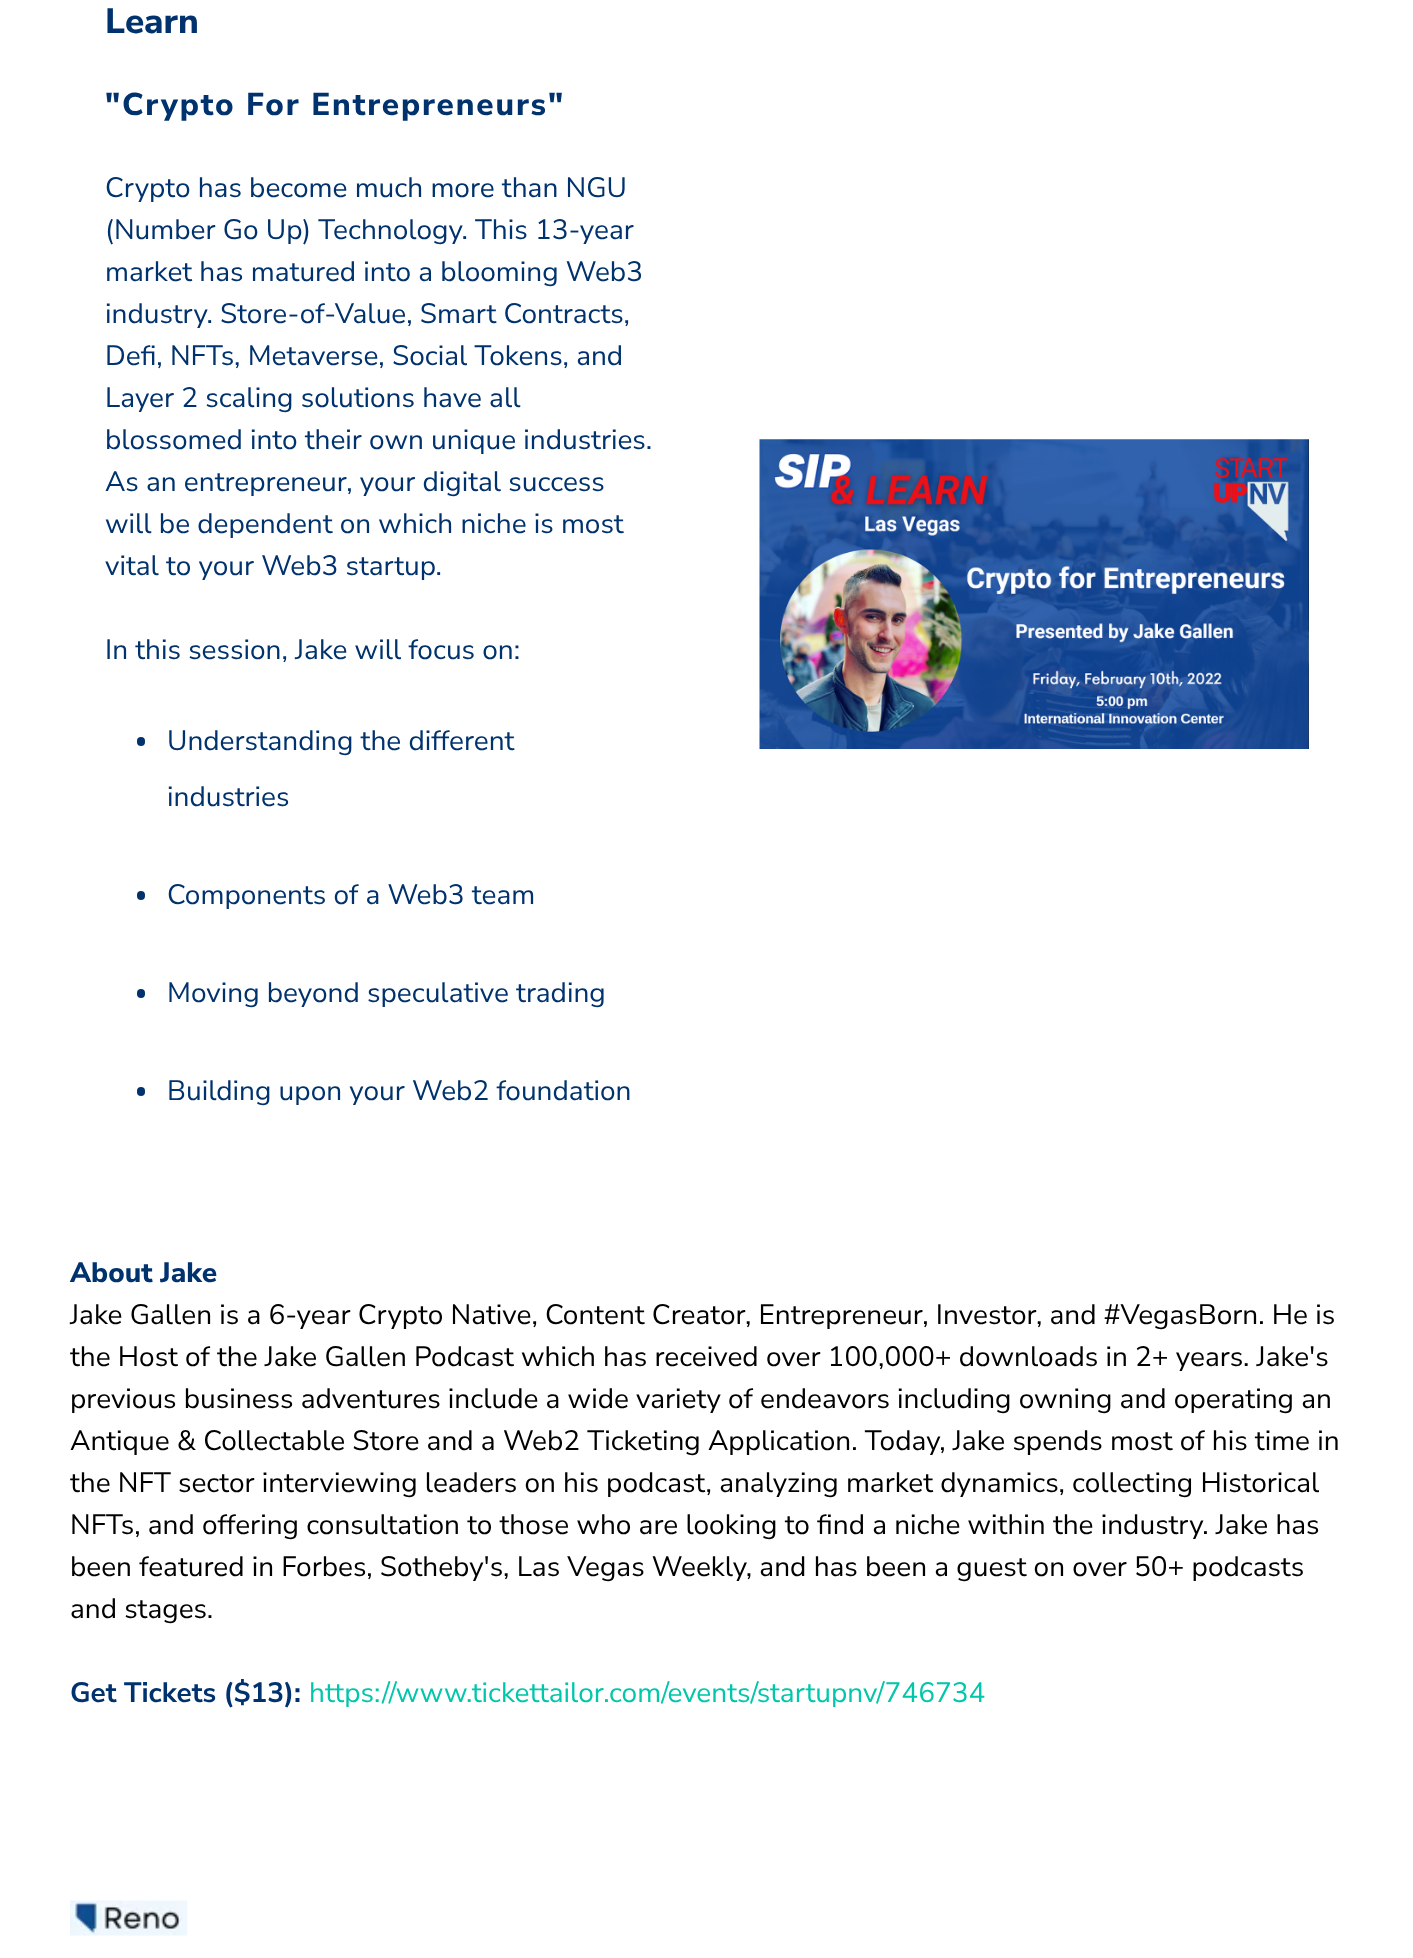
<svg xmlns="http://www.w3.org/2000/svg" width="1413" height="1958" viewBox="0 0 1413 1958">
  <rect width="100%" height="100%" fill="rgb(255,255,255)"/>
  <text x="105" y="33" font-family="Nunito Sans" font-size="35" font-weight="800" fill="rgb(0,50,109)">Learn</text>
  <text x="105" y="115" font-family="Nunito Sans" font-size="31.5" font-weight="800" letter-spacing="1.85" fill="rgb(0,50,109)">"Crypto For Entrepreneurs"</text>
  <g font-family="Nunito Sans" font-size="28" fill="rgb(0,50,109)">
    <text>
      <tspan x="105" y="197">Crypto has become much more than NGU</tspan>
      <tspan x="105" y="239">(Number Go Up) Technology. This 13-year</tspan>
      <tspan x="105" y="281">market has matured into a blooming Web3</tspan>
      <tspan x="105" y="323">industry. Store-of-Value, Smart Contracts,</tspan>
      <tspan x="105" y="365">Defi, NFTs, Metaverse, Social Tokens, and</tspan>
      <tspan x="105" y="407">Layer 2 scaling solutions have all</tspan>
      <tspan x="105" y="449">blossomed into their own unique industries.</tspan>
      <tspan x="105" y="491">As an entrepreneur, your digital success</tspan>
      <tspan x="105" y="533">will be dependent on which niche is most</tspan>
      <tspan x="105" y="575">vital to your Web3 startup.</tspan>
    </text>
    <text x="105" y="659">In this session, Jake will focus on:</text>
  </g>
  <rect x="137" y="737" width="8" height="9" rx="4" fill="rgb(0,50,109)"/>
  <g font-family="Nunito Sans" font-size="28" fill="rgb(0,50,109)">
    <text x="167" y="750">Understanding the different</text>
    <text x="167" y="806">industries</text>
  </g>
  <rect x="137" y="891" width="8" height="9" rx="4" fill="rgb(0,50,109)"/>
  <text x="167" y="904" font-family="Nunito Sans" font-size="28" fill="rgb(0,50,109)">Components of a Web3 team</text>
  <rect x="137" y="989" width="8" height="9" rx="4" fill="rgb(0,50,109)"/>
  <text x="167" y="1002" font-family="Nunito Sans" font-size="28" fill="rgb(0,50,109)">Moving beyond speculative trading</text>
  <rect x="137" y="1087" width="8" height="9" rx="4" fill="rgb(0,50,109)"/>
  <text x="167" y="1100" font-family="Nunito Sans" font-size="28" fill="rgb(0,50,109)">Building upon your Web2 foundation</text>
  <image x="759" y="439" width="550" height="310" href="pic1.png"/>
  <text x="70" y="1282" font-family="Nunito Sans" font-size="28" font-weight="800" fill="rgb(0,50,109)">About Jake</text>
  <g font-family="Nunito Sans" font-size="28" fill="rgb(0,0,0)">
    <text>
      <tspan x="70" y="1324">Jake Gallen is a 6-year Crypto Native, Content Creator, Entrepreneur, Investor, and #VegasBorn. He is</tspan>
      <tspan x="70" y="1366">the Host of the Jake Gallen Podcast which has received over 100,000+ downloads in 2+ years. Jake's</tspan>
      <tspan x="70" y="1408">previous business adventures include a wide variety of endeavors including owning and operating an</tspan>
      <tspan x="70" y="1450">Antique &amp; Collectable Store and a Web2 Ticketing Application. Today, Jake spends most of his time in</tspan>
      <tspan x="70" y="1492">the NFT sector interviewing leaders on his podcast, analyzing market dynamics, collecting Historical</tspan>
      <tspan x="70" y="1534">NFTs, and offering consultation to those who are looking to find a niche within the industry. Jake has</tspan>
      <tspan x="70" y="1576">been featured in Forbes, Sotheby's, Las Vegas Weekly, and has been a guest on over 50+ podcasts</tspan>
      <tspan x="70" y="1618">and stages.</tspan>
    </text>
  </g>
  <text x="70" y="1702" font-family="Nunito Sans" font-size="28" font-weight="bold" fill="rgb(0,50,109)">Get Tickets ($13):</text>
  <text x="309" y="1702" font-family="Nunito Sans" font-size="28" fill="rgb(0,198,171)">https://www.tickettailor.com/events/startupnv/746734</text>
  <image x="70" y="1900" width="118" height="36" href="pic2.png"/>
</svg>
